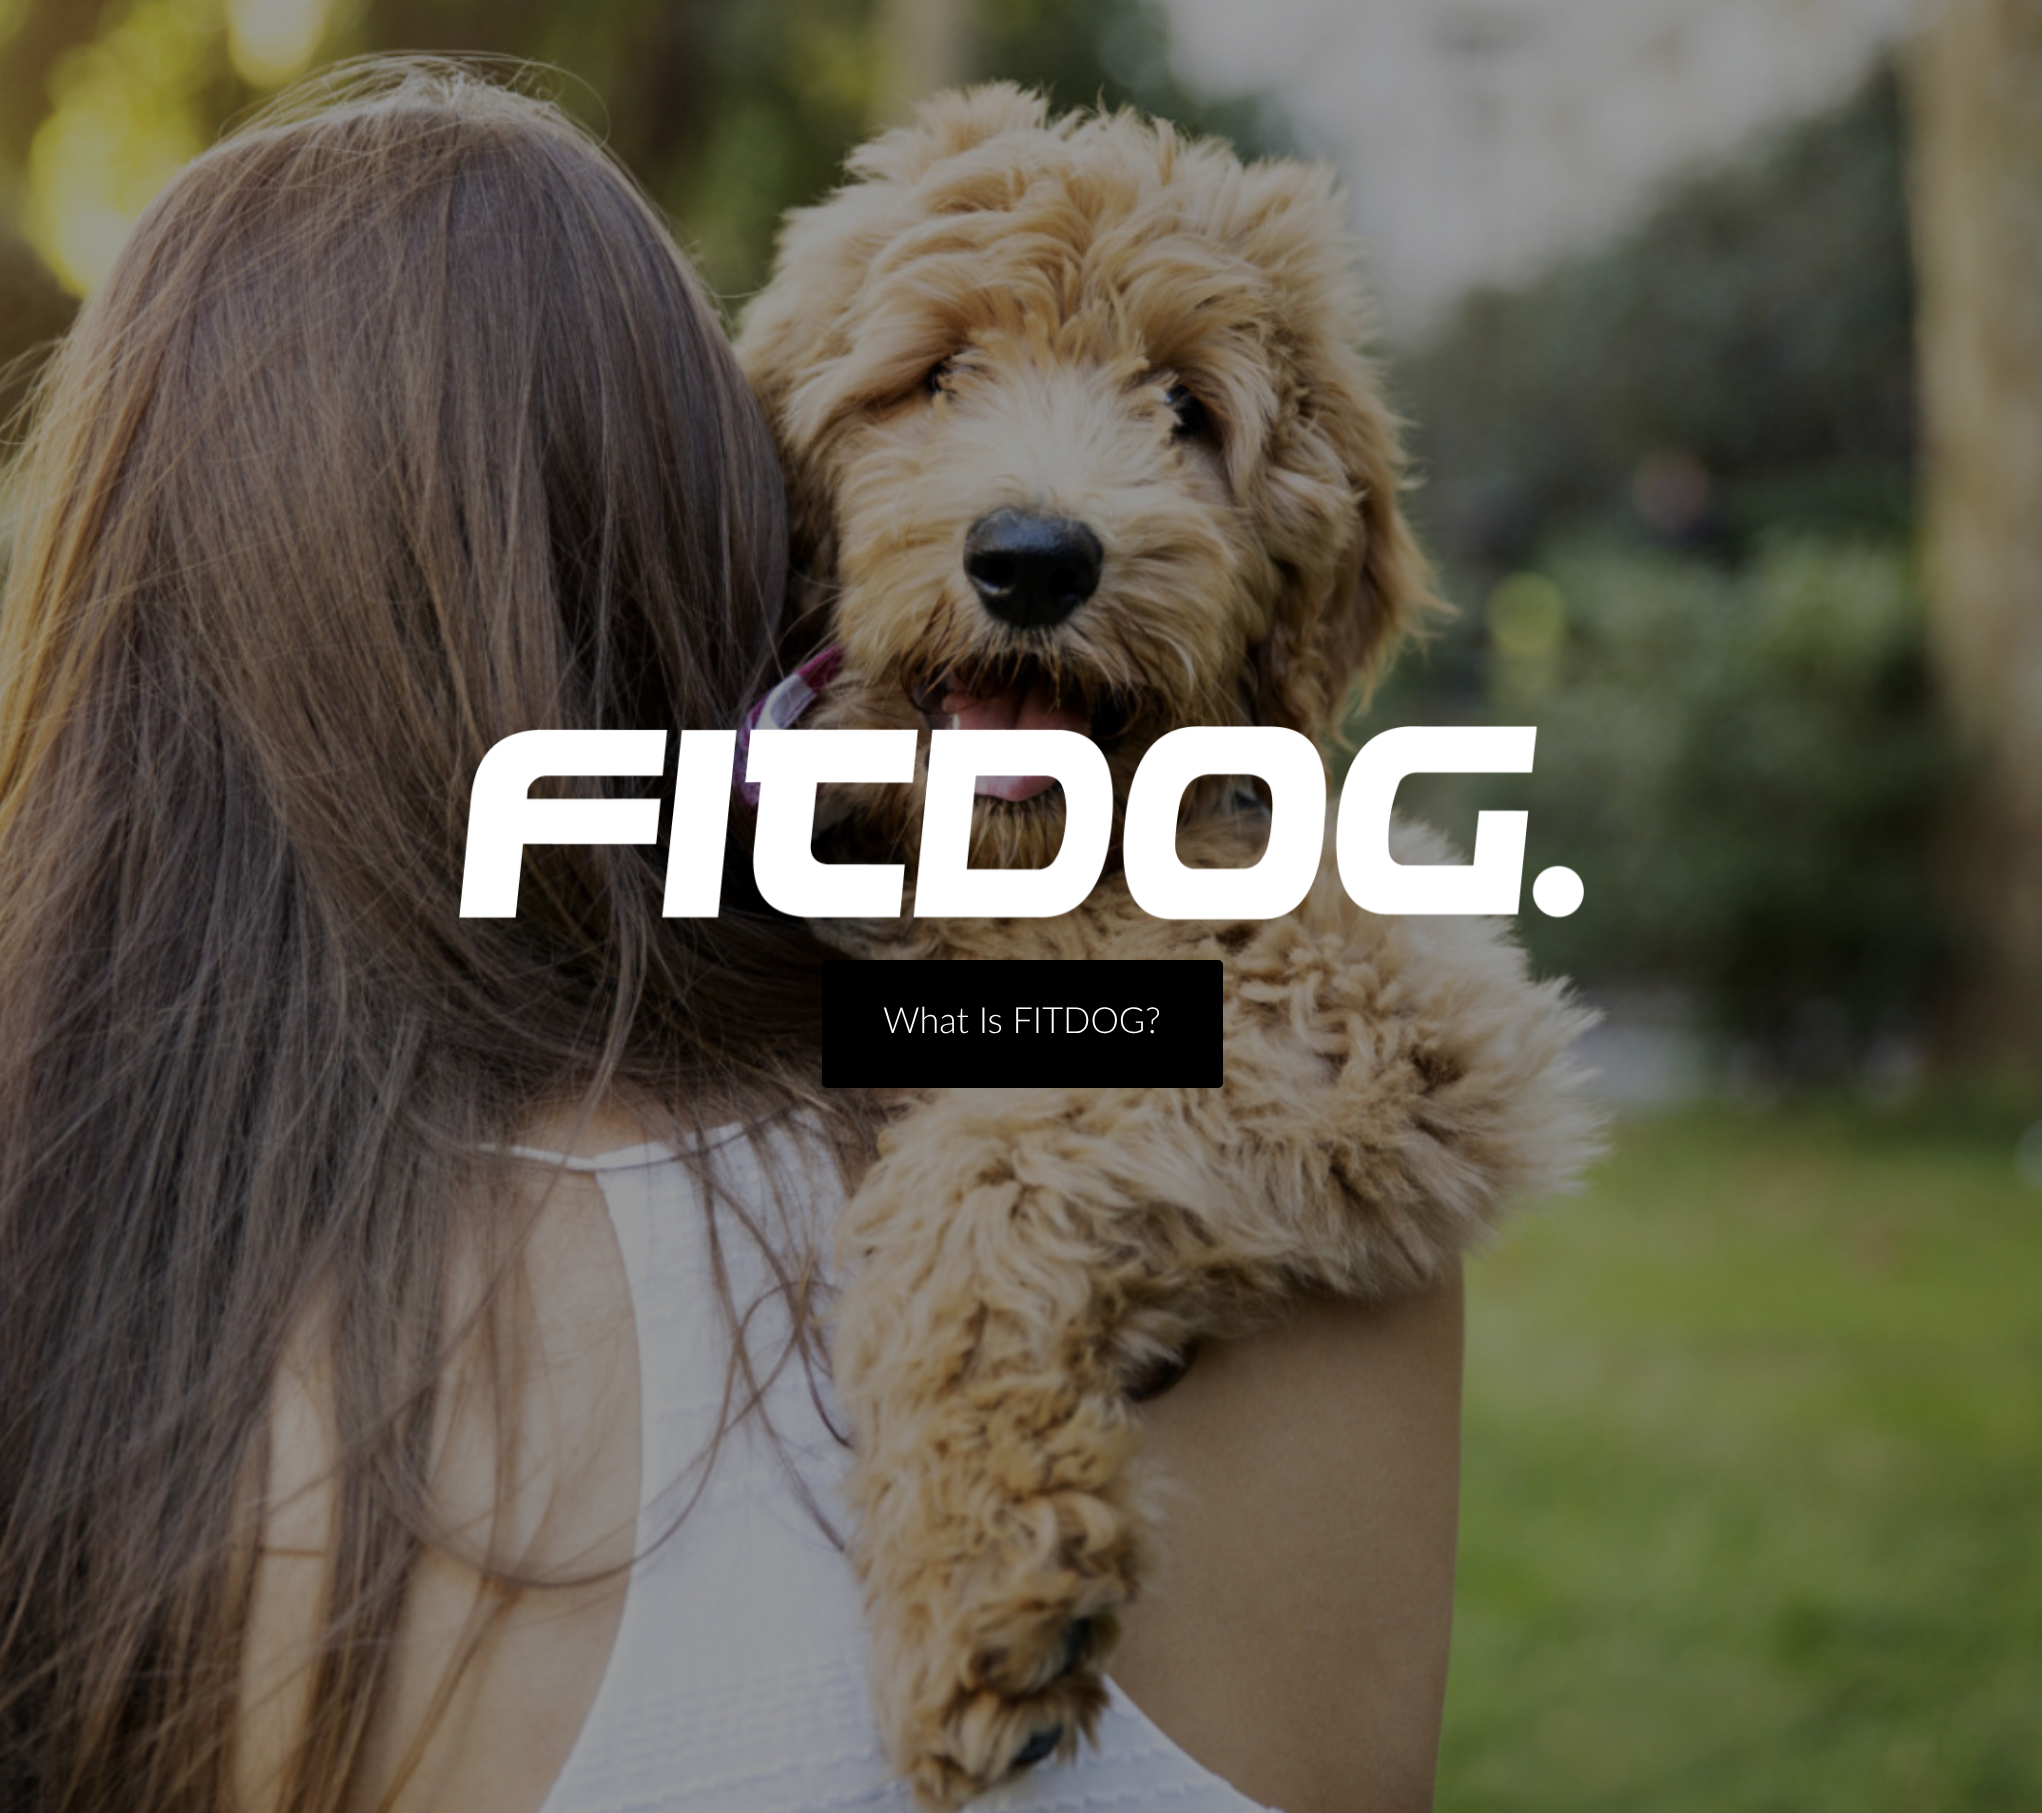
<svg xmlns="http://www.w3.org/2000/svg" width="2042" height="1813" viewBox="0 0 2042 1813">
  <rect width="100%" height="100%" fill="rgb(255,255,255)"/>
  <image x="0" y="0" width="2042" height="1813" href="pic1.png"/>
  <image x="459" y="726" width="1125" height="194" href="pic2.png"/>
  <rect x="823.5" y="961.5" width="398" height="125" rx="3.5" fill="rgb(0,0,0)" stroke="rgb(0,0,0)" stroke-width="3"/>
  <text x="883" y="1033" font-family="Lato" font-size="36" font-weight="300" fill="rgb(255,255,255)">What Is FITDOG?</text>
</svg>
